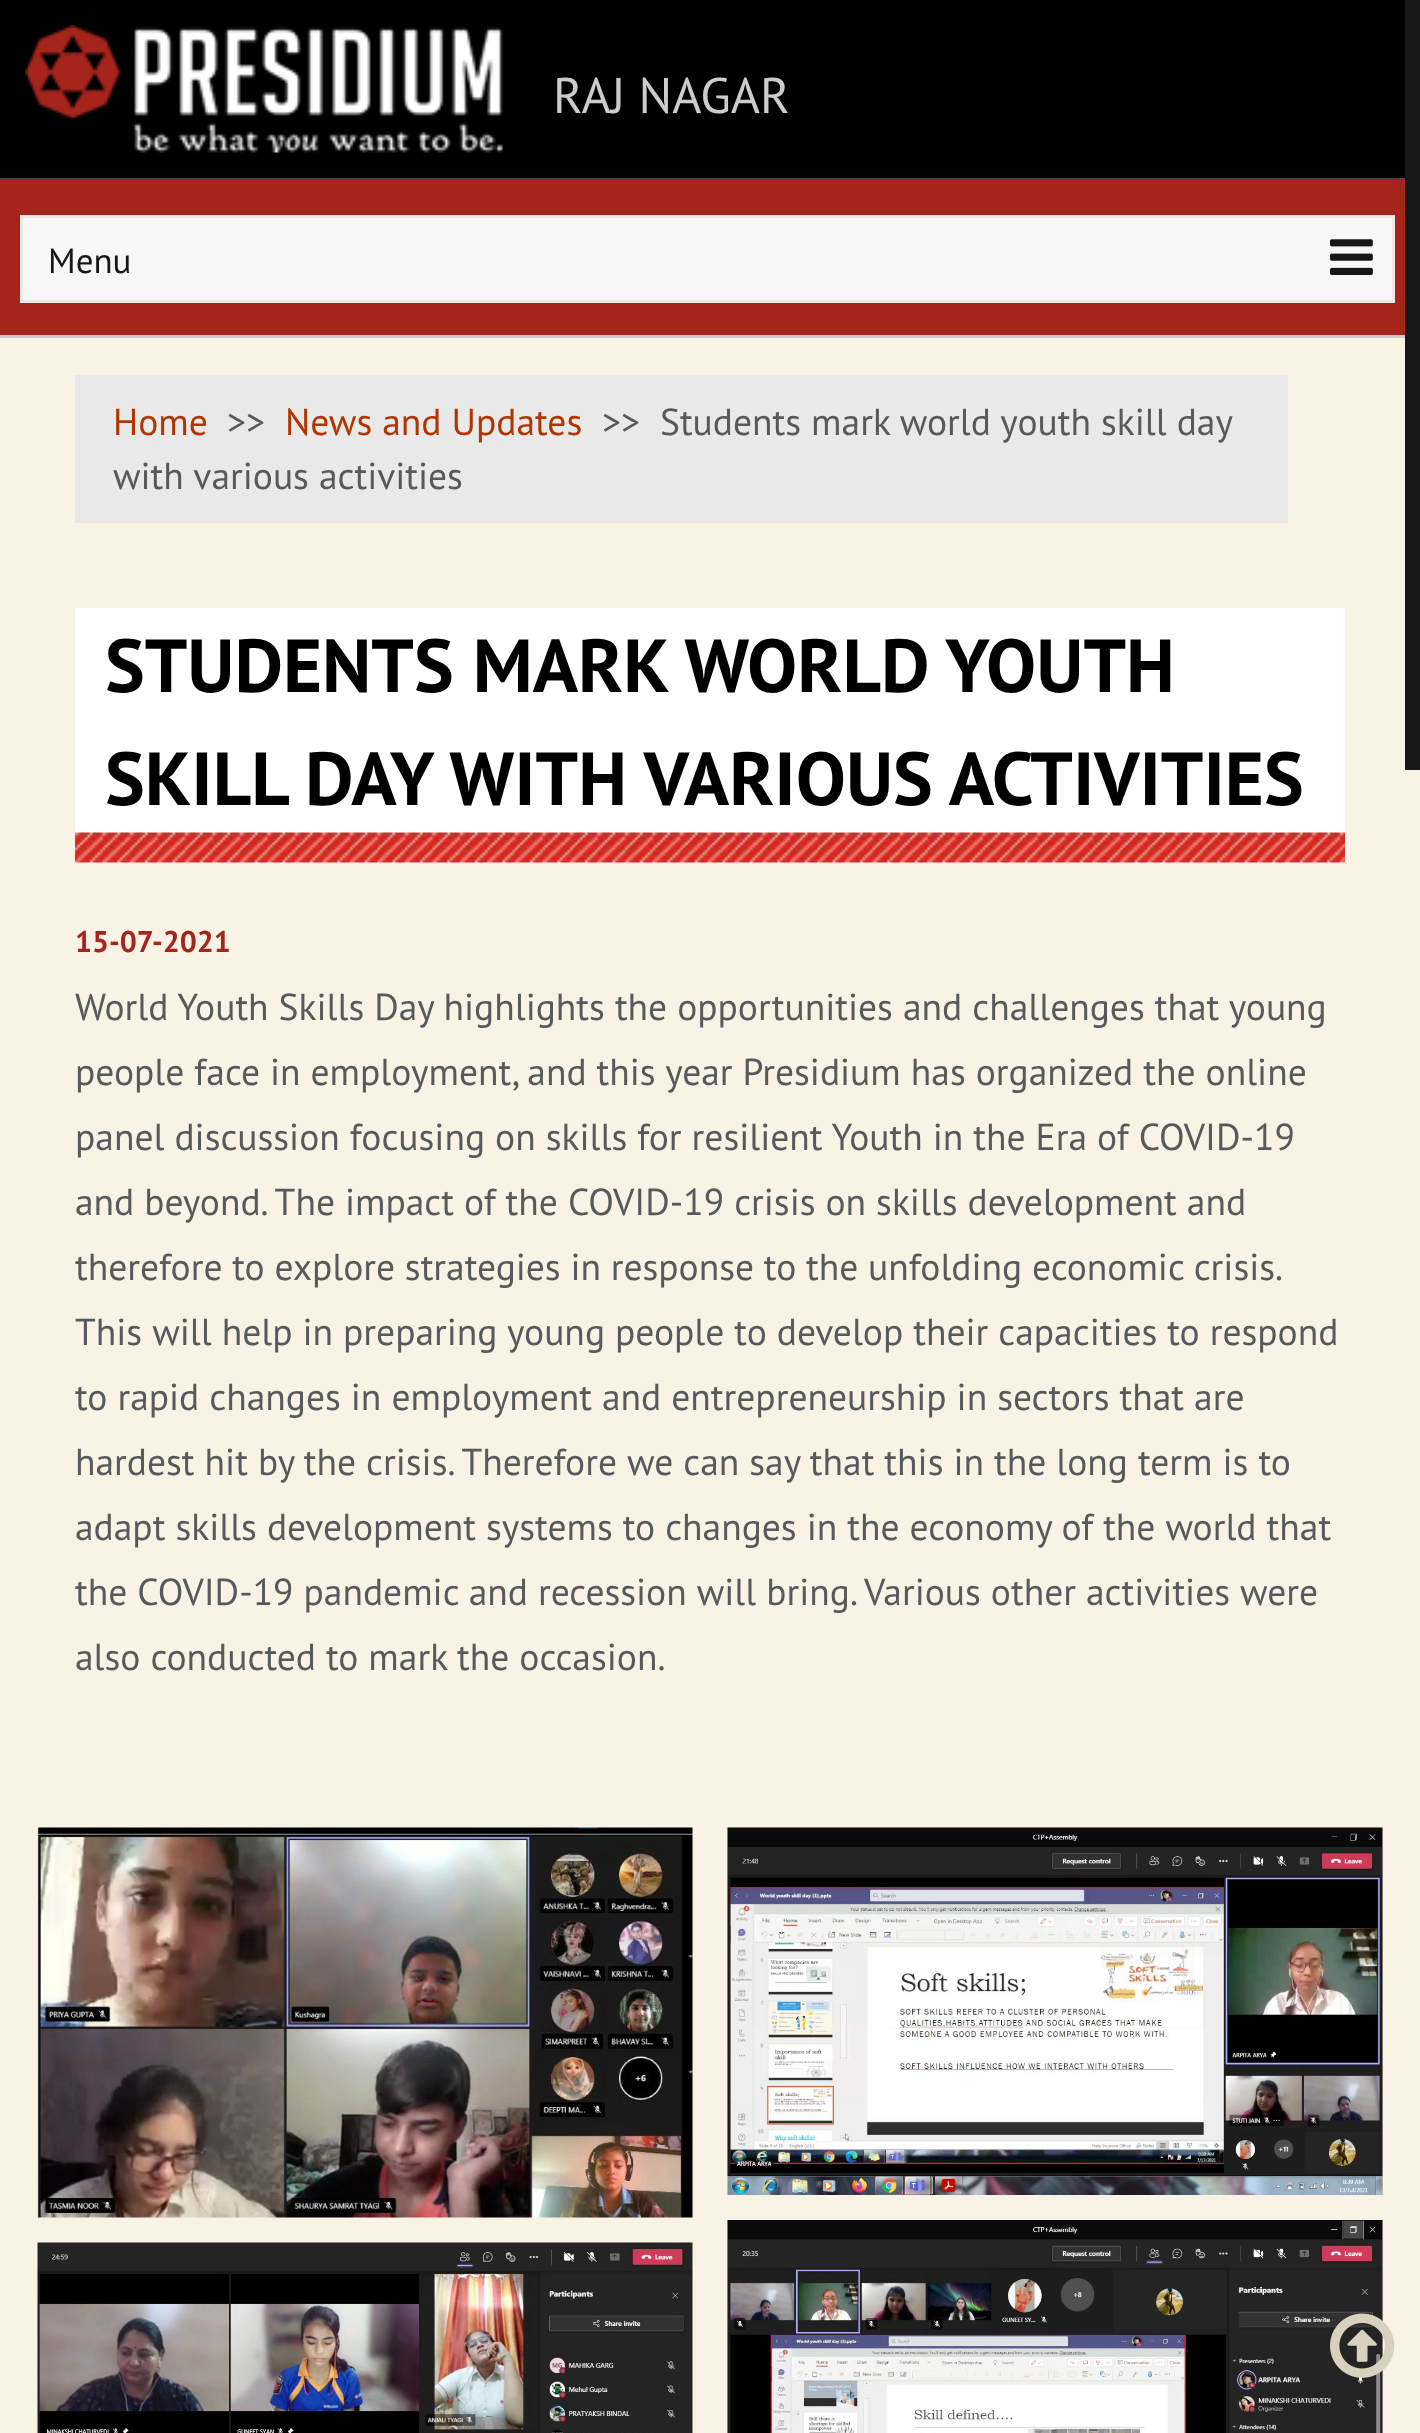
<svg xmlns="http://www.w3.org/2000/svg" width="1420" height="2433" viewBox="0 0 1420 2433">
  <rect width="100%" height="100%" fill="rgb(249,243,229)"/>
  <rect x="0" y="0" width="1405" height="178" fill="rgb(0,0,0)"/>
  <rect x="0" y="178" width="1405" height="2" fill="rgb(66,66,66)"/>
  <image x="25" y="25" width="478" height="128" href="pic1.png"/>
  <text x="553" y="113" font-family="PT Sans" font-size="50" fill="rgb(204,204,204)">RAJ NAGAR</text>
  <rect x="0" y="180" width="1405" height="155" fill="rgb(165,36,28)"/>
  <rect x="0" y="335" width="1405" height="3" fill="rgb(204,204,204)"/>
  <rect x="21.5" y="216.5" width="1372" height="85" fill="rgb(248,247,247)" stroke="rgb(233,232,232)" stroke-width="3"/>
  <text x="48" y="273" font-family="PT Sans" font-size="35" fill="rgb(23,23,23)">Menu</text>
  <image x="1330" y="239" width="43" height="36" href="pic2.png"/>
  <rect x="75" y="375" width="1213" height="148" fill="rgb(234,233,233)"/>
  <text x="113" y="435" font-family="PT Sans" font-size="37.5" fill="rgb(176,53,0)">Home</text>
  <text x="227" y="435" font-family="PT Sans" font-size="37.5" fill="rgb(88,89,91)">&gt;&gt;</text>
  <text x="285" y="435" font-family="PT Sans" font-size="37.5" fill="rgb(176,53,0)">News and Updates</text>
  <g font-family="PT Sans" font-size="37.5" fill="rgb(88,89,91)">
    <text x="602" y="435">&gt;&gt;</text>
    <text x="660" y="435">Students mark world youth skill day</text>
    <text x="113" y="489">with various activities</text>
  </g>
  <rect x="75" y="608" width="1270" height="255" fill="rgb(255,255,255)"/>
  <image x="75" y="832" width="1270" height="31" href="pic3.png"/>
  <g font-family="PT Sans" font-size="75" font-weight="bold" fill="rgb(0,0,0)">
    <text>
      <tspan x="105" y="692">STUDENTS MARK WORLD YOUTH</tspan>
      <tspan x="105" y="805">SKILL DAY WITH VARIOUS ACTIVITIES</tspan>
    </text>
  </g>
  <text x="75" y="952" font-family="PT Sans" font-size="30" font-weight="bold" fill="rgb(165,36,28)">15-07-2021</text>
  <g font-family="PT Sans" font-size="37.5" fill="rgb(88,89,91)">
    <text>
      <tspan x="75" y="1020">World Youth Skills Day highlights the opportunities and challenges that young</tspan>
      <tspan x="75" y="1085">people face in employment, and this year Presidium has organized the online</tspan>
      <tspan x="75" y="1150">panel discussion focusing on skills for resilient Youth in the Era of COVID-19</tspan>
      <tspan x="75" y="1215">and beyond. The impact of the COVID-19 crisis on skills development and</tspan>
      <tspan x="75" y="1280" word-spacing="-0.25">therefore to explore strategies in response to the unfolding economic crisis.</tspan>
      <tspan x="75" y="1345">This will help in preparing young people to develop their capacities to respond</tspan>
      <tspan x="75" y="1410">to rapid changes in employment and entrepreneurship in sectors that are</tspan>
      <tspan x="75" y="1475">hardest hit by the crisis. Therefore we can say that this in the long term is to</tspan>
      <tspan x="75" y="1540">adapt skills development systems to changes in the economy of the world that</tspan>
      <tspan x="75" y="1605">the COVID-19 pandemic and recession will bring. Various other activities were</tspan>
      <tspan x="75" y="1670">also conducted to mark the occasion.</tspan>
    </text>
  </g>
  <image x="37" y="1827" width="656" height="391" href="pic4.png"/>
  <image x="727" y="1827" width="656" height="368" href="pic5.png"/>
  <image x="37" y="2242" width="656" height="191" href="pic6.png"/>
  <image x="727" y="2220" width="656" height="213" href="pic7.png"/>
  <rect x="1405" y="0" width="15" height="770" fill="rgb(23,23,23)"/>
  <image x="1330" y="2313" width="65" height="65" href="pic8.png"/>
</svg>
